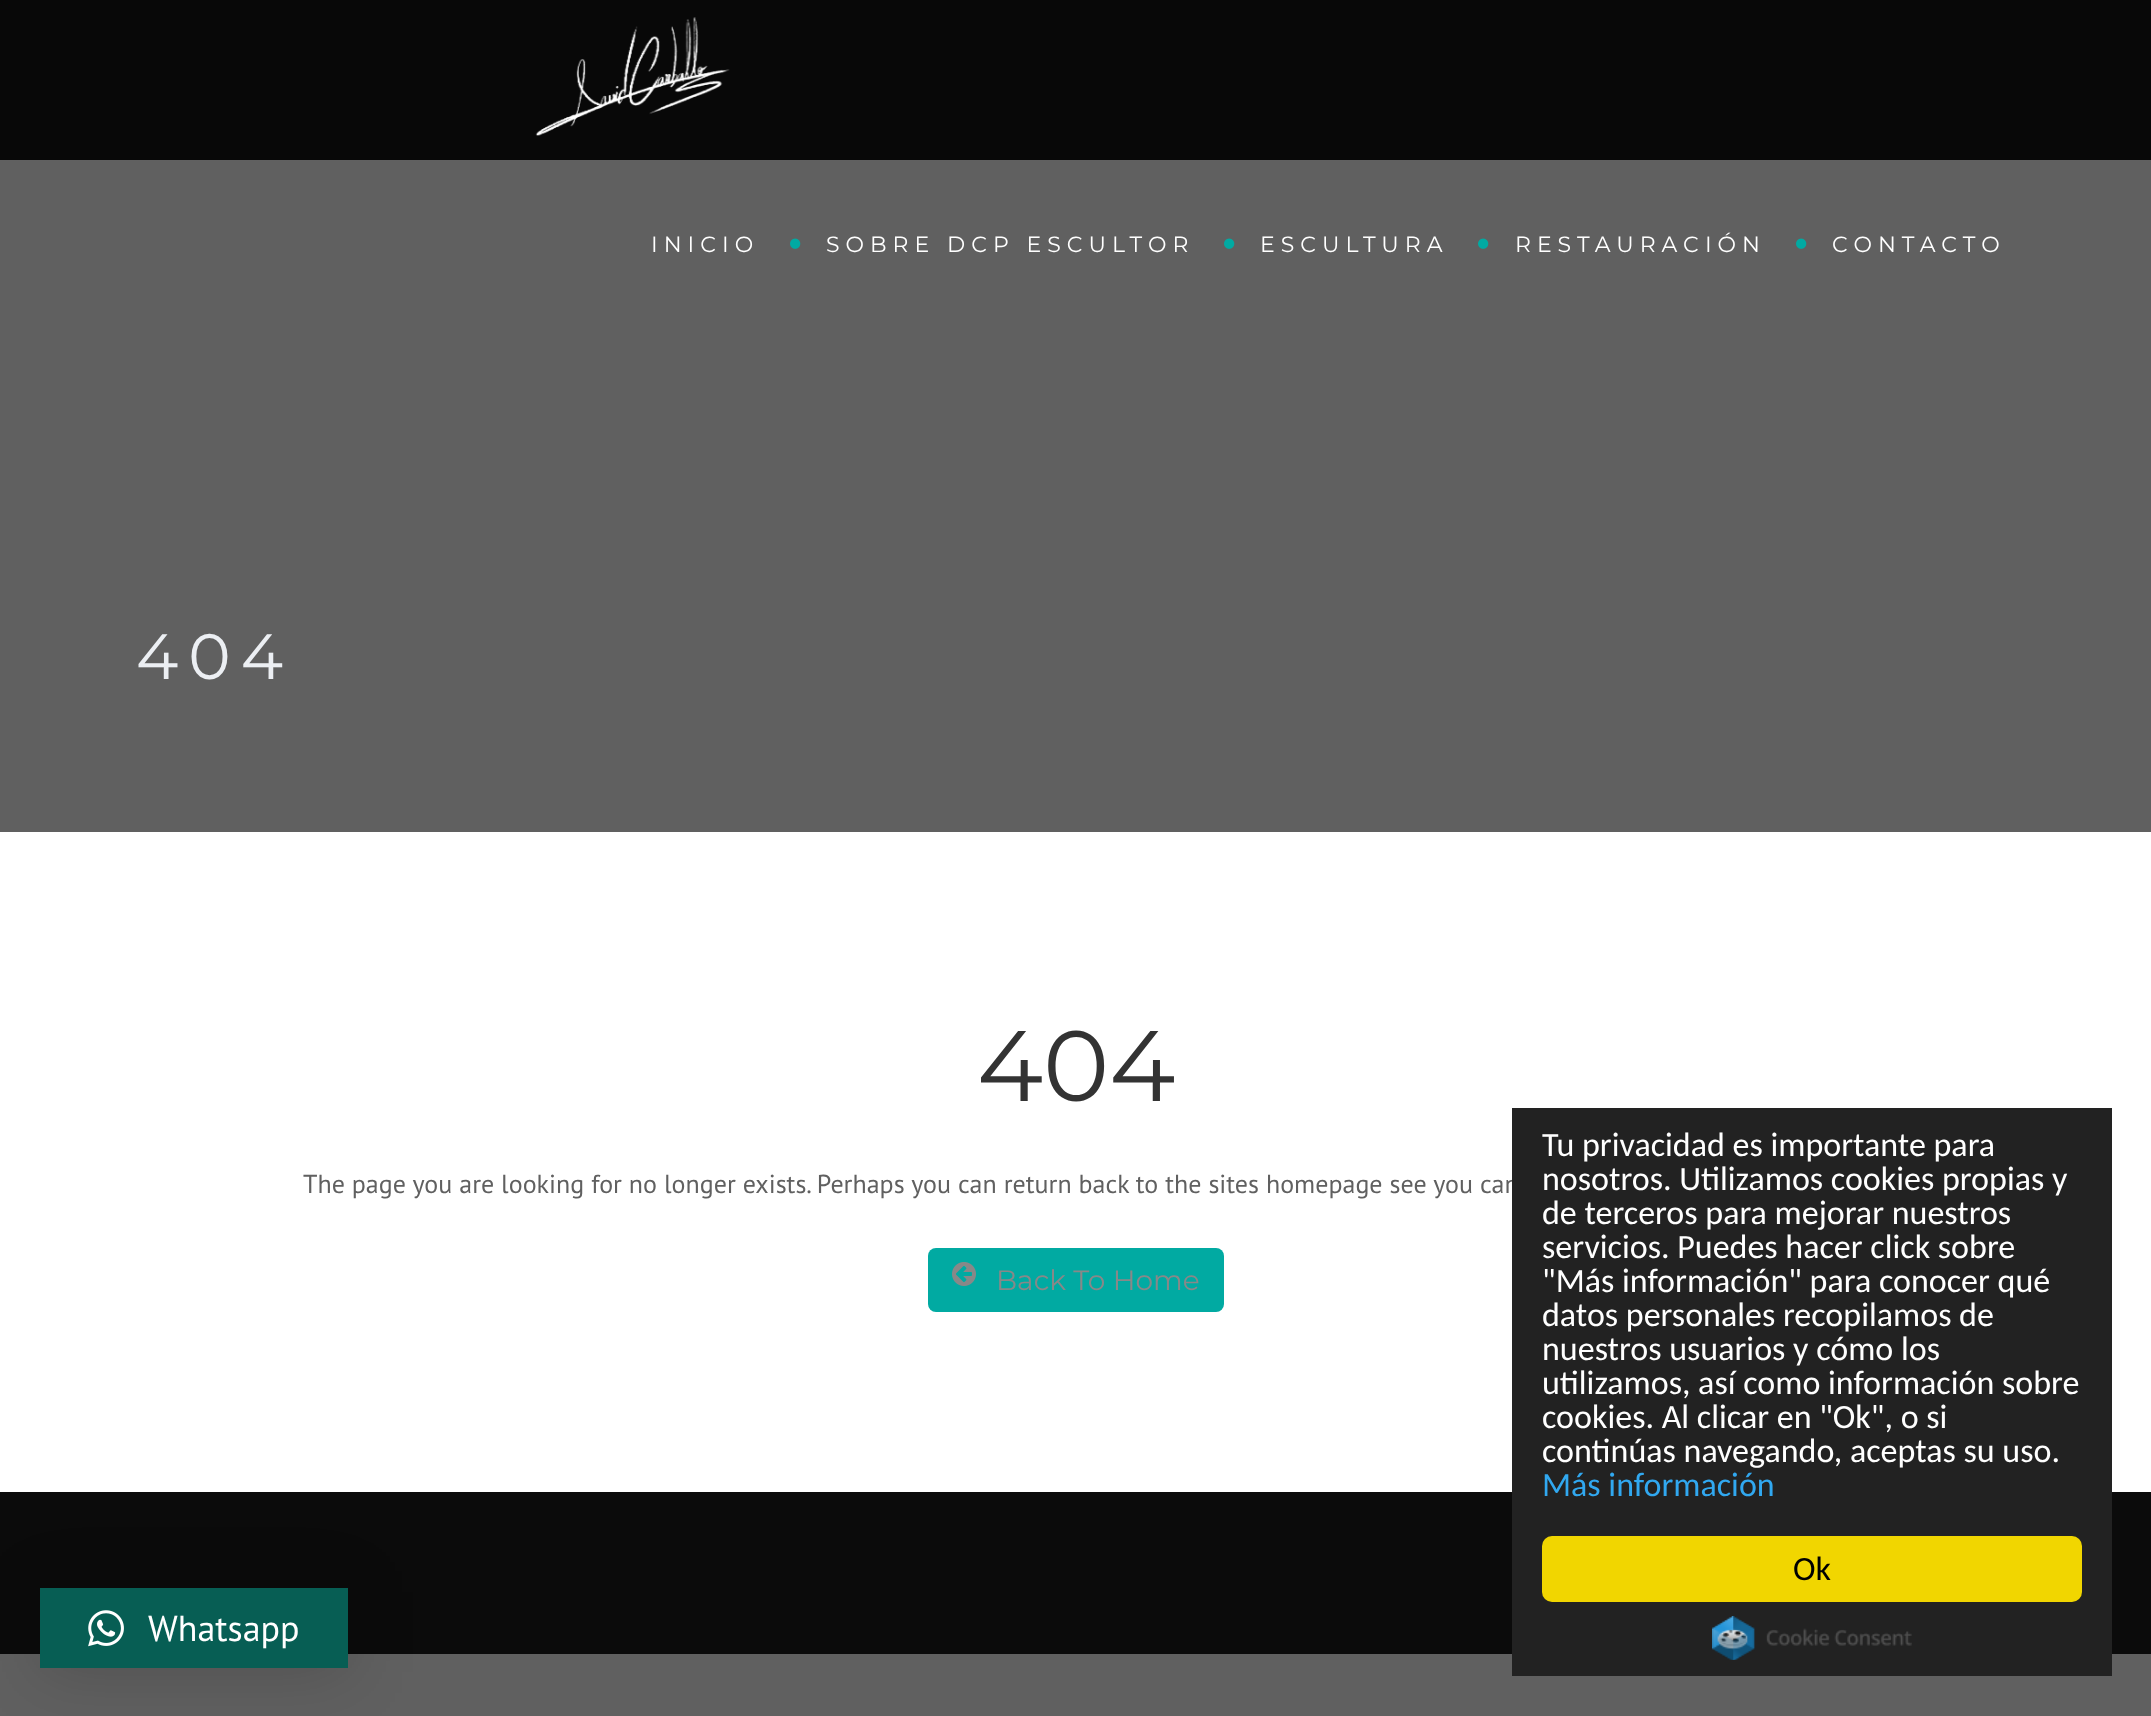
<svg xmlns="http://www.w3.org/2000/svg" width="2151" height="1716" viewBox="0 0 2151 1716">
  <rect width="100%" height="100%" fill="rgb(96,96,96)"/>
  <rect x="0" y="0" width="2151" height="160" fill="rgb(8,8,8)"/>
  <image x="535" y="17" width="195" height="119" href="pic1.png"/>
  <text x="651" y="252" font-family="Montserrat" font-size="22" font-weight="100" letter-spacing="6" fill="rgb(255,255,255)">INICIO</text>
  <image x="790" y="238" width="11" height="11" href="pic2.png"/>
  <text x="826" y="252" font-family="Montserrat" font-size="22" font-weight="100" letter-spacing="6" fill="rgb(255,255,255)">SOBRE DCP ESCULTOR</text>
  <image x="1224" y="238" width="11" height="11" href="pic2.png"/>
  <text x="1260" y="252" font-family="Montserrat" font-size="22" font-weight="100" letter-spacing="6" fill="rgb(255,255,255)">ESCULTURA</text>
  <image x="1478" y="238" width="11" height="11" href="pic2.png"/>
  <text x="1515" y="252" font-family="Montserrat" font-size="22" font-weight="100" letter-spacing="6" fill="rgb(255,255,255)">RESTAURACIÓN</text>
  <image x="1796" y="238" width="11" height="11" href="pic2.png"/>
  <text x="1832" y="252" font-family="Montserrat" font-size="22" font-weight="100" letter-spacing="6" fill="rgb(255,255,255)">CONTACTO</text>
  <text x="136" y="679" font-family="Montserrat" font-size="64" font-weight="100" letter-spacing="10" fill="rgb(236,239,243)">404</text>
  <rect x="0" y="832" width="2151" height="660" fill="rgb(255,255,255)"/>
  <text x="977" y="1101" font-family="Montserrat" font-size="100" font-weight="100" fill="rgb(51,51,51)">404</text>
  <text x="303" y="1193" font-family="PT Sans" font-size="26" fill="rgb(96,96,96)">The page you are looking for no longer exists. Perhaps you can return back to the sites homepage see you can</text>
  <rect x="928" y="1248" width="296" height="64" rx="8" fill="rgb(1,170,162)"/>
  <image x="952" y="1262" width="24" height="24" href="pic3.png"/>
  <text x="996" y="1290" font-family="Montserrat" font-size="28" font-weight="100" fill="rgb(136,136,136)">Back To Home</text>
  <rect x="0" y="1492" width="2151" height="162" fill="rgb(11,11,11)"/>
  <rect x="1512" y="1108" width="600" height="568" fill="rgb(34,34,34)"/>
  <g font-family="Carlito" font-size="34" fill="rgb(255,255,255)">
    <text>
      <tspan x="1542" y="1156">Tu privacidad es importante para</tspan>
      <tspan x="1542" y="1190">nosotros. Utilizamos cookies propias y</tspan>
      <tspan x="1542" y="1224">de terceros para mejorar nuestros</tspan>
      <tspan x="1542" y="1258">servicios. Puedes hacer click sobre</tspan>
      <tspan x="1542" y="1292">"Más información" para conocer qué</tspan>
      <tspan x="1542" y="1326">datos personales recopilamos de</tspan>
      <tspan x="1542" y="1360">nuestros usuarios y cómo los</tspan>
      <tspan x="1542" y="1394">utilizamos, así como información sobre</tspan>
      <tspan x="1542" y="1428">cookies. Al clicar en "Ok", o si</tspan>
      <tspan x="1542" y="1462">continúas navegando, aceptas su uso.</tspan>
    </text>
  </g>
  <text x="1542" y="1496" font-family="Carlito" font-size="34" fill="rgb(49,168,240)">Más información</text>
  <rect x="1542" y="1536" width="540" height="66" rx="10" fill="rgb(241,214,0)"/>
  <text x="1793" y="1580" font-family="Carlito" font-size="34" fill="rgb(0,0,0)">Ok</text>
  <image x="1712" y="1616" width="200" height="44" href="pic4.png"/>
  <rect x="40" y="1592" width="308" height="80" fill="rgba(0,0,0,0.16)" filter="blur(32px)"/>
  <rect x="40" y="1588" width="308" height="80" fill="rgb(7,94,84)"/>
  <image x="88" y="1610" width="36" height="37" href="pic5.png"/>
  <text x="148" y="1641" font-family="PT Sans" font-size="36" fill="rgb(255,255,255)">Whatsapp</text>
</svg>
